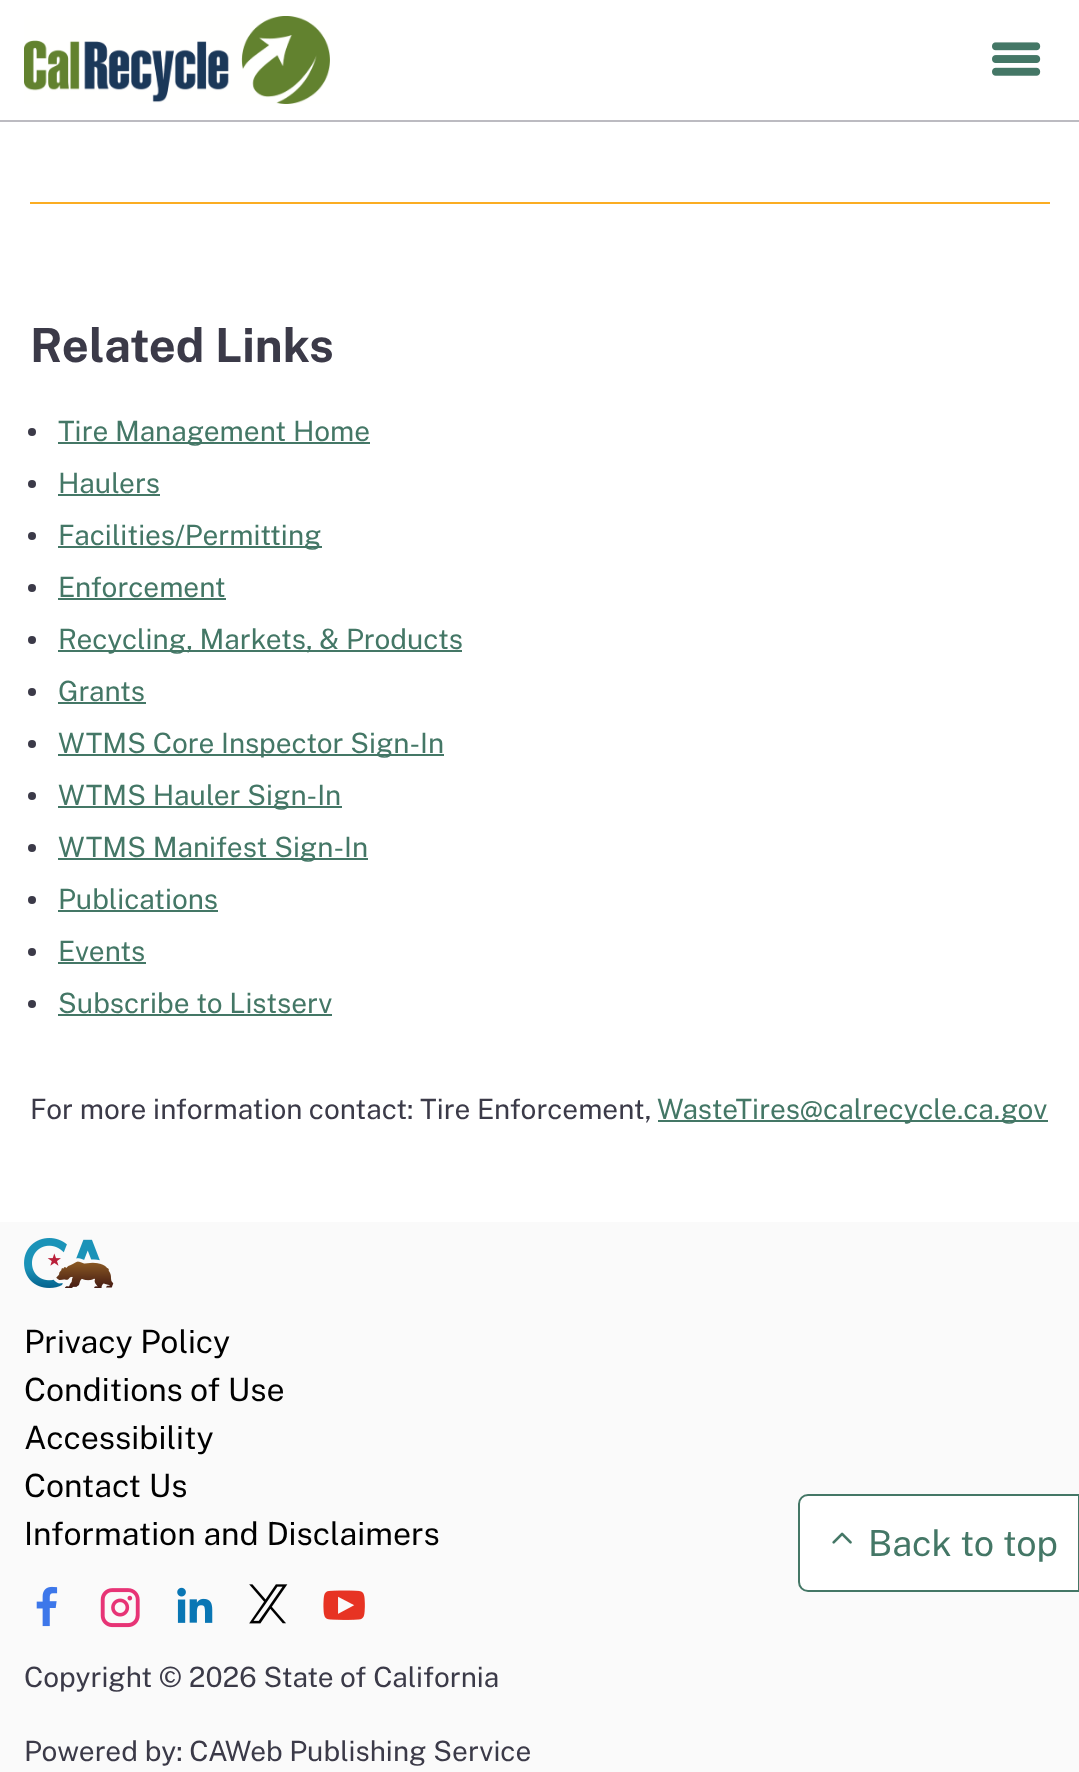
<svg xmlns="http://www.w3.org/2000/svg" width="1079" height="1772" viewBox="0 0 1079 1772">
  <rect width="100%" height="100%" fill="rgb(255,255,255)"/>
  <rect x="0" y="120" width="1079" height="2" fill="rgb(188,187,193)"/>
  <image x="24" y="16" width="306" height="88" href="pic1.png"/>
  <image x="992" y="42" width="49" height="34" href="pic2.png"/>
  <rect x="30" y="202" width="1020" height="2" fill="rgb(251,173,35)"/>
  <text x="30" y="362" font-family="Public Sans" font-size="47" font-weight="bold" fill="rgb(59,58,72)">Related Links</text>
  <circle cx="32" cy="432" r="4" fill="rgb(59,58,72)"/>
  <rect x="58" y="442" width="312" height="2" fill="rgb(68,119,102)"/>
  <text x="58" y="441" font-family="Public Sans" font-size="28" fill="rgb(68,119,102)">Tire Management Home</text>
  <circle cx="32" cy="484" r="4" fill="rgb(59,58,72)"/>
  <text x="58" y="493" font-family="Public Sans" font-size="28" fill="rgb(68,119,102)">Haulers</text>
  <rect x="58" y="494" width="102" height="2" fill="rgb(68,119,102)"/>
  <circle cx="32" cy="536" r="4" fill="rgb(59,58,72)"/>
  <rect x="58" y="546" width="264" height="2" fill="rgb(68,119,102)"/>
  <text x="58" y="545" font-family="Public Sans" font-size="28" fill="rgb(68,119,102)">Facilities/Permitting</text>
  <circle cx="32" cy="588" r="4" fill="rgb(59,58,72)"/>
  <text x="58" y="597" font-family="Public Sans" font-size="28" fill="rgb(68,119,102)">Enforcement</text>
  <rect x="58" y="598" width="168" height="2" fill="rgb(68,119,102)"/>
  <circle cx="32" cy="640" r="4" fill="rgb(59,58,72)"/>
  <rect x="58" y="650" width="404" height="2" fill="rgb(68,119,102)"/>
  <text x="58" y="649" font-family="Public Sans" font-size="28" fill="rgb(68,119,102)">Recycling, Markets, &amp; Products</text>
  <circle cx="32" cy="692" r="4" fill="rgb(59,58,72)"/>
  <text x="58" y="701" font-family="Public Sans" font-size="28" fill="rgb(68,119,102)">Grants</text>
  <rect x="58" y="702" width="88" height="2" fill="rgb(68,119,102)"/>
  <circle cx="32" cy="744" r="4" fill="rgb(59,58,72)"/>
  <rect x="58" y="754" width="386" height="2" fill="rgb(68,119,102)"/>
  <text x="58" y="753" font-family="Public Sans" font-size="28" fill="rgb(68,119,102)">WTMS Core Inspector Sign-In</text>
  <circle cx="32" cy="796" r="4" fill="rgb(59,58,72)"/>
  <rect x="58" y="806" width="284" height="2" fill="rgb(68,119,102)"/>
  <text x="58" y="805" font-family="Public Sans" font-size="28" fill="rgb(68,119,102)">WTMS Hauler Sign-In</text>
  <circle cx="32" cy="848" r="4" fill="rgb(59,58,72)"/>
  <rect x="58" y="858" width="310" height="2" fill="rgb(68,119,102)"/>
  <text x="58" y="857" font-family="Public Sans" font-size="28" fill="rgb(68,119,102)">WTMS Manifest Sign-In</text>
  <circle cx="32" cy="900" r="4" fill="rgb(59,58,72)"/>
  <text x="58" y="909" font-family="Public Sans" font-size="28" fill="rgb(68,119,102)">Publications</text>
  <rect x="58" y="910" width="160" height="2" fill="rgb(68,119,102)"/>
  <circle cx="32" cy="952" r="4" fill="rgb(59,58,72)"/>
  <text x="58" y="961" font-family="Public Sans" font-size="28" fill="rgb(68,119,102)">Events</text>
  <rect x="58" y="962" width="88" height="2" fill="rgb(68,119,102)"/>
  <circle cx="32" cy="1004" r="4" fill="rgb(59,58,72)"/>
  <text x="58" y="1013" font-family="Public Sans" font-size="28" fill="rgb(68,119,102)">Subscribe to Listserv</text>
  <rect x="58" y="1014" width="274" height="2" fill="rgb(68,119,102)"/>
  <text x="30" y="1119" font-family="Public Sans" font-size="28" fill="rgb(59,58,72)">For more information contact: Tire Enforcement,</text>
  <rect x="658" y="1120" width="390" height="2" fill="rgb(68,119,102)"/>
  <text x="657" y="1119" font-family="Public Sans" font-size="28" fill="rgb(68,119,102)">WasteTires@calrecycle.ca.gov</text>
  <rect x="0" y="1222" width="1079" height="550" fill="rgb(250,250,250)"/>
  <image x="24" y="1238" width="90" height="50" href="pic3.png"/>
  <g font-family="Public Sans" font-size="32" fill="rgb(0,0,0)">
    <text>
      <tspan x="24" y="1353">Privacy Policy</tspan>
      <tspan x="24" y="1401">Conditions of Use</tspan>
      <tspan x="24" y="1449">Accessibility</tspan>
      <tspan x="24" y="1497">Contact Us</tspan>
      <tspan x="24" y="1545">Information and Disclaimers</tspan>
    </text>
  </g>
  <image x="36" y="1586" width="22" height="41" href="pic4.png"/>
  <image x="100" y="1588" width="40" height="40" href="pic5.png"/>
  <image x="177" y="1587" width="36" height="36" href="pic6.png"/>
  <image x="249" y="1584" width="39" height="40" href="pic7.png"/>
  <image x="323" y="1590" width="42" height="30" href="pic8.png"/>
  <path d="M808 1495H1079V1591H808C803 1591 799 1587 799 1582V1504C799 1499 803 1495 808 1495Z" fill="rgb(255,255,255)" stroke="rgb(68,119,102)" stroke-width="2"/>
  <image x="832" y="1532" width="20" height="12" href="pic9.png"/>
  <text x="868" y="1556" font-family="Public Sans" font-size="36" fill="rgb(68,119,102)">Back to top</text>
  <g font-family="Public Sans" font-size="28" fill="rgb(59,58,72)">
    <text x="24" y="1687">Copyright © 2026 State of California</text>
    <text x="24" y="1761">Powered by: CAWeb Publishing Service</text>
  </g>
</svg>
